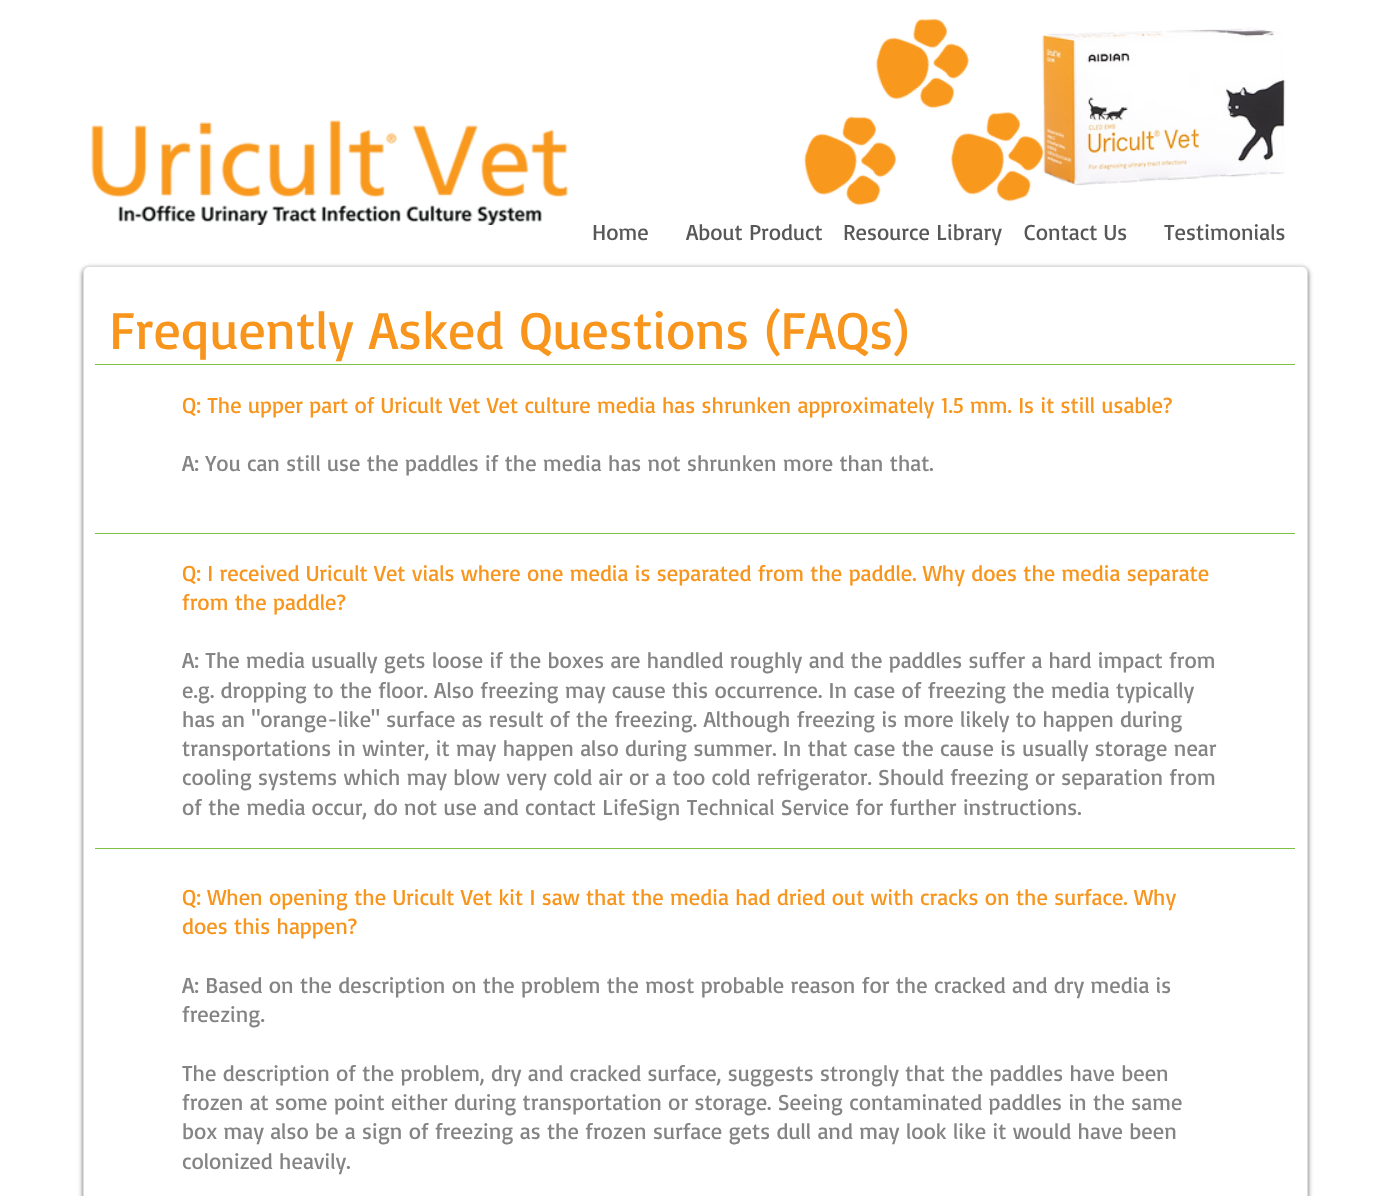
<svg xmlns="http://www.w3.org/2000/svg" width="1388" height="1196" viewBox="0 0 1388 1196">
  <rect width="100%" height="100%" fill="rgb(255,255,255)"/>
  <image x="91" y="120" width="477" height="105" href="pic1.png"/>
  <image x="804" y="116" width="93" height="90" href="pic2.png"/>
  <image x="875" y="18" width="95" height="91" href="pic3.png"/>
  <image x="1042" y="27" width="244" height="159" href="pic5.png"/>
  <image x="950" y="111" width="94" height="91" href="pic4.png"/>
  <g font-family="Basic" font-size="22.5" fill="rgb(88,88,88)">
    <text x="592" y="240">Home</text>
    <text x="686" y="240">About Product</text>
    <text x="843" y="240">Resource Library</text>
    <text x="1024" y="240">Contact Us</text>
    <text x="1164" y="240">Testimonials</text>
  </g>
  <rect x="83" y="268" width="1225" height="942" rx="6" fill="rgba(0,0,0,0.6)" filter="blur(2.5px)"/>
  <rect x="83.5" y="266.5" width="1224" height="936" rx="5.5" fill="rgb(255,255,255)" stroke="rgb(221,221,221)"/>
  <text x="109" y="349" font-family="Basic" font-size="53.75" fill="rgb(247,149,29)">Frequently Asked Questions (FAQs)</text>
  <rect x="95" y="364" width="1200" height="1" fill="rgb(128,193,67)"/>
  <text x="182" y="413" font-family="Basic" font-size="22.5" fill="rgb(247,149,29)">Q: The upper part of Uricult Vet Vet culture media has shrunken approximately 1.5 mm. Is it still usable?</text>
  <text x="182" y="471" font-family="Basic" font-size="22.5" fill="rgb(132,132,132)">A: You can still use the paddles if the media has not shrunken more than that.</text>
  <rect x="95" y="533" width="1200" height="1" fill="rgb(128,193,67)"/>
  <g font-family="Basic" font-size="22.5" fill="rgb(247,149,29)">
    <text>
      <tspan x="182" y="581">Q: I received Uricult Vet vials where one media is separated from the paddle. Why does the media separate</tspan>
      <tspan x="182" y="610">from the paddle?</tspan>
    </text>
  </g>
  <g font-family="Basic" font-size="22.5" fill="rgb(132,132,132)">
    <text>
      <tspan x="182" y="668">A: The media usually gets loose if the boxes are handled roughly and the paddles suffer a hard impact from</tspan>
      <tspan x="182" y="698">e.g. dropping to the floor. Also freezing may cause this occurrence. In case of freezing the media typically</tspan>
      <tspan x="182" y="727">has an "orange-like" surface as result of the freezing. Although freezing is more likely to happen during</tspan>
      <tspan x="182" y="756">transportations in winter, it may happen also during summer. In that case the cause is usually storage near</tspan>
      <tspan x="182" y="785">cooling systems which may blow very cold air or a too cold refrigerator. Should freezing or separation from</tspan>
      <tspan x="182" y="815">of the media occur, do not use and contact LifeSign Technical Service for further instructions.</tspan>
    </text>
  </g>
  <rect x="95" y="848" width="1200" height="1" fill="rgb(128,193,67)"/>
  <g font-family="Basic" font-size="22.5" fill="rgb(247,149,29)">
    <text>
      <tspan x="182" y="905">Q: When opening the Uricult Vet kit I saw that the media had dried out with cracks on the surface. Why</tspan>
      <tspan x="182" y="934">does this happen?</tspan>
    </text>
  </g>
  <g font-family="Basic" font-size="22.5" fill="rgb(132,132,132)">
    <text>
      <tspan x="182" y="993">A: Based on the description on the problem the most probable reason for the cracked and dry media is</tspan>
      <tspan x="182" y="1022">freezing.</tspan>
    </text>
    <text>
      <tspan x="182" y="1081">The description of the problem, dry and cracked surface, suggests strongly that the paddles have been</tspan>
      <tspan x="182" y="1110">frozen at some point either during transportation or storage. Seeing contaminated paddles in the same</tspan>
      <tspan x="182" y="1139">box may also be a sign of freezing as the frozen surface gets dull and may look like it would have been</tspan>
      <tspan x="182" y="1169">colonized heavily.</tspan>
    </text>
  </g>
</svg>
